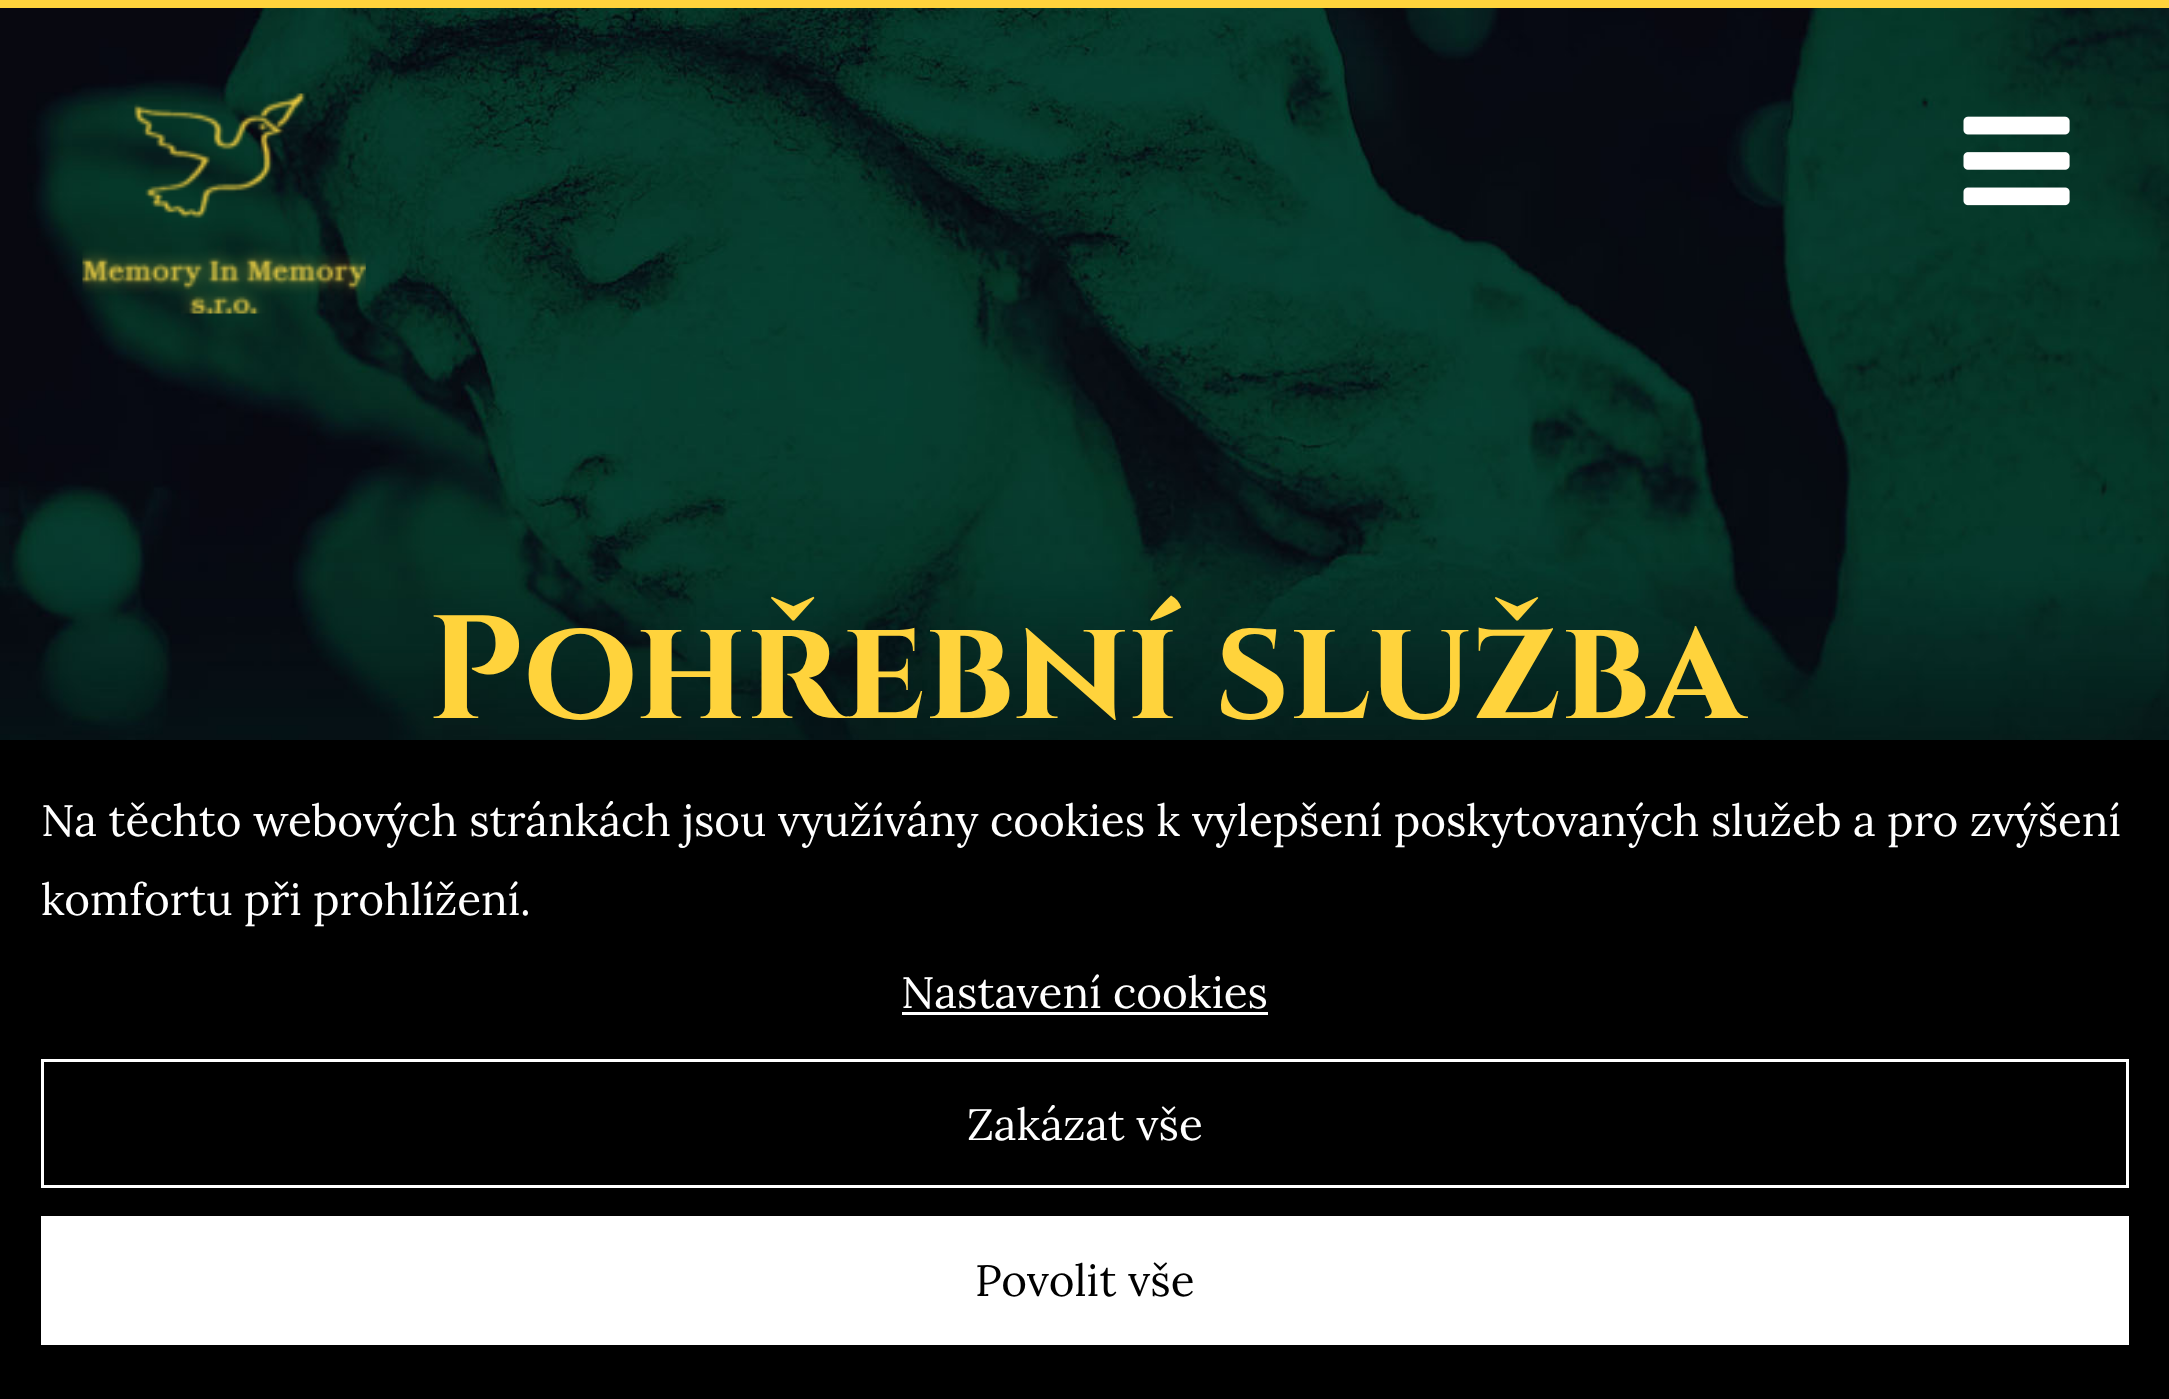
<svg xmlns="http://www.w3.org/2000/svg" width="2169" height="1399" viewBox="0 0 2169 1399">
  <rect width="100%" height="100%" fill="rgb(255,255,255)"/>
  <rect x="0" y="0" width="2169" height="8" fill="rgb(255,211,60)"/>
  <image x="0" y="8" width="2169" height="732" href="pic3.png"/>
  <image x="82" y="93" width="284" height="221" href="pic1.png"/>
  <image x="1963" y="116" width="107" height="90" href="pic2.png"/>
  <text x="427" y="718" font-family="Cinzel" font-size="146.75" font-weight="bold" fill="rgb(255,211,60)">Pohřební služba</text>
  <rect x="0" y="740" width="2169" height="659" fill="rgb(0,0,0)"/>
  <g font-family="Lora" font-size="44" fill="rgb(255,255,255)">
    <text>
      <tspan x="41" y="836">Na těchto webových stránkách jsou využívány cookies k vylepšení poskytovaných služeb a pro zvýšení</tspan>
      <tspan x="41" y="915">komfortu při prohlížení.</tspan>
    </text>
    <text x="901" y="1008">Nastavení cookies</text>
  </g>
  <rect x="902" y="1012" width="366" height="3" fill="rgb(255,255,255)"/>
  <rect x="42.5" y="1060.5" width="2085" height="126" fill="none" stroke="rgb(255,255,255)" stroke-width="3"/>
  <text x="967" y="1140" font-family="Lora" font-size="44" fill="rgb(255,255,255)">Zakázat vše</text>
  <rect x="41" y="1216" width="2088" height="129" fill="rgb(255,255,255)"/>
  <text x="975" y="1296" font-family="Lora" font-size="44" fill="rgb(0,0,0)">Povolit vše</text>
</svg>
